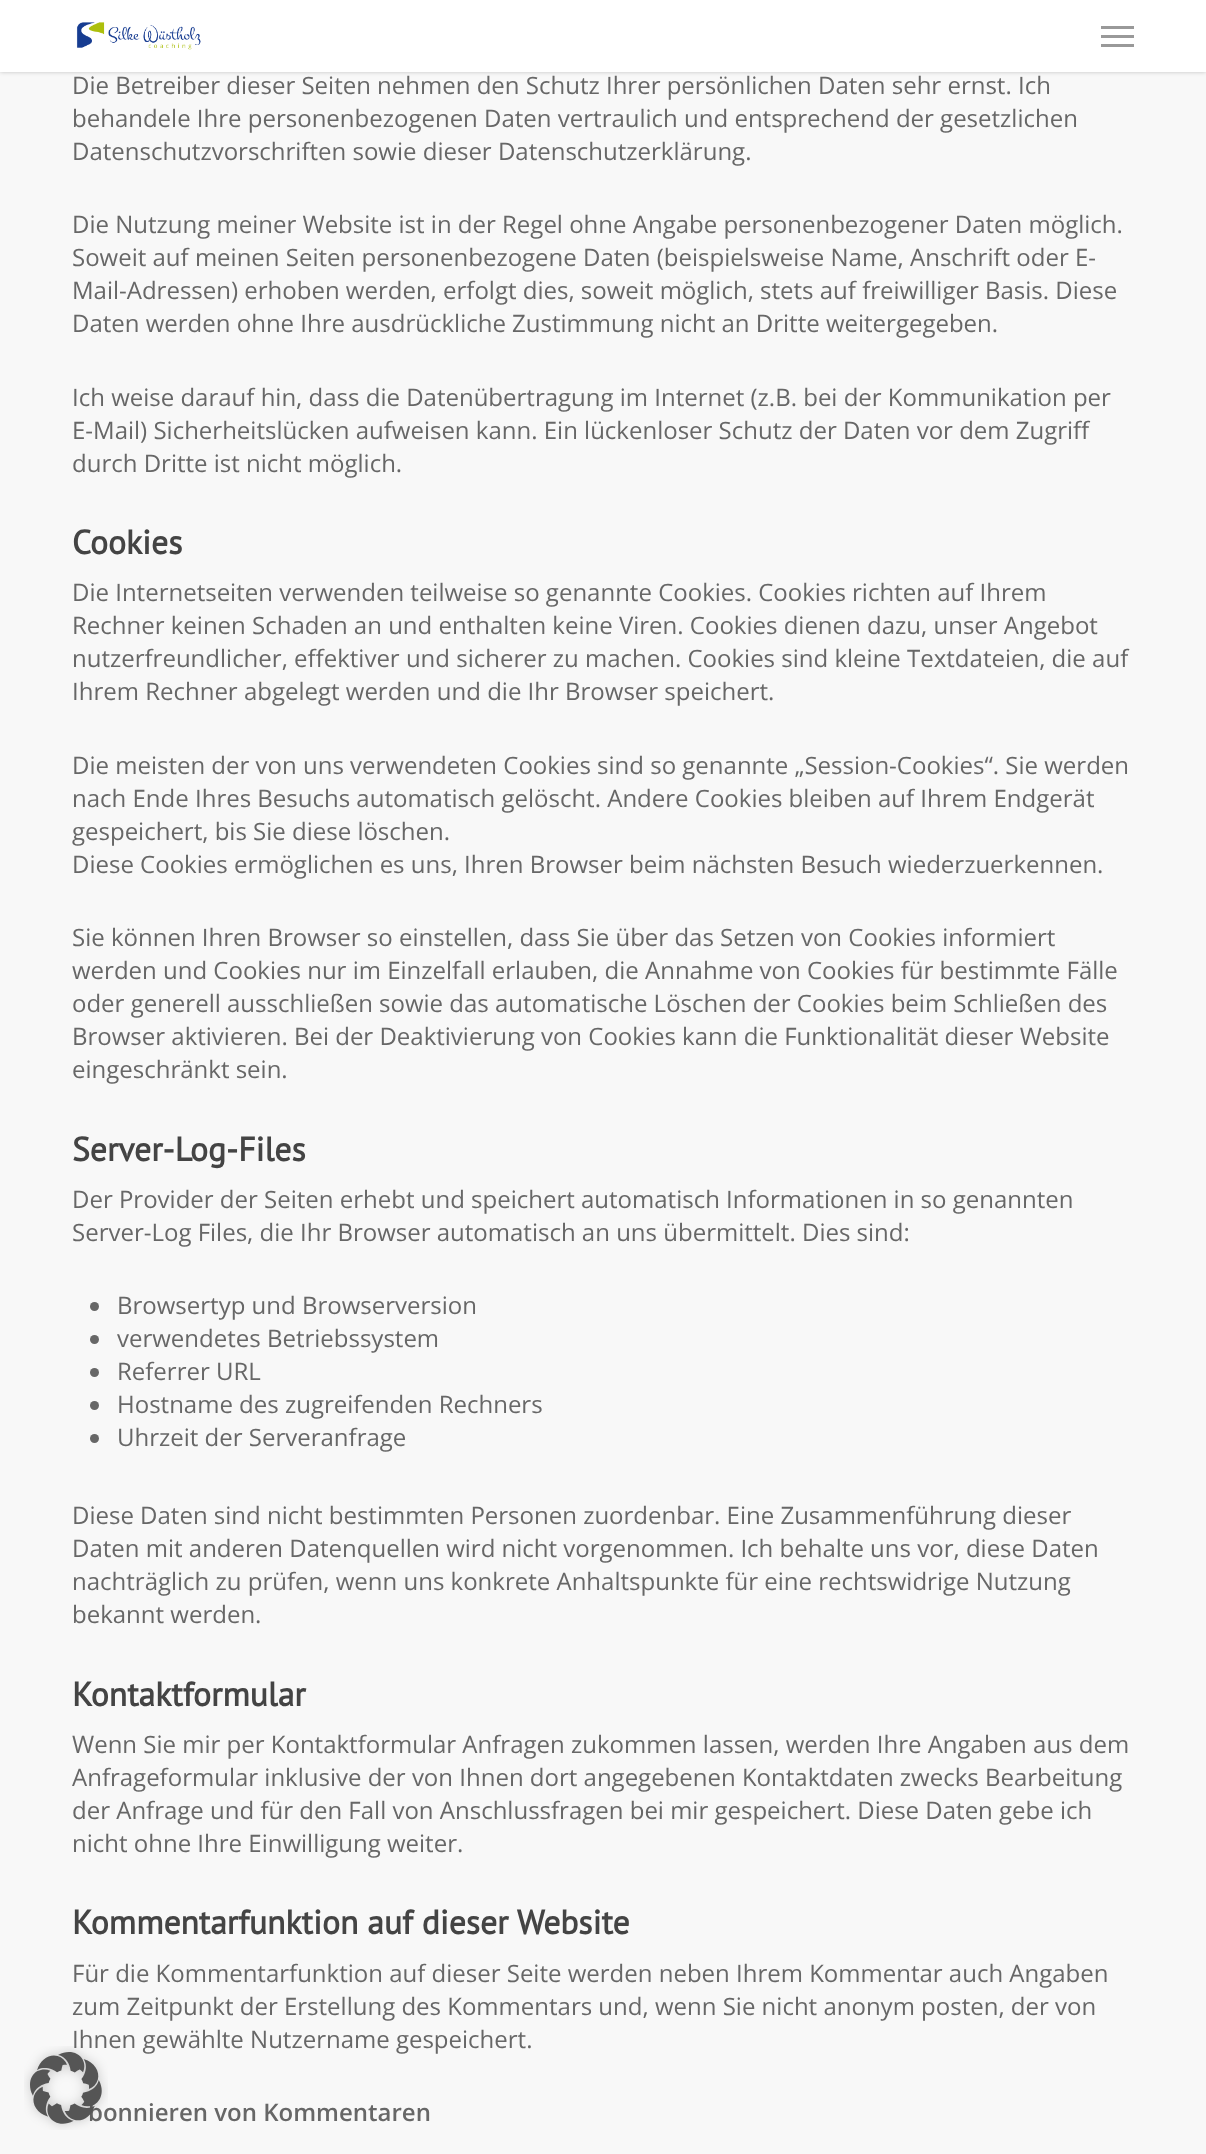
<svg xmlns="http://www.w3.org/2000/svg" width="1206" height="2154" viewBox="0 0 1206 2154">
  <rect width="100%" height="100%" fill="rgb(248,248,248)"/>
  <rect x="0" y="0" width="1206" height="72" fill="rgba(0,0,0,0.22)" filter="blur(2px)"/>
  <rect x="0" y="0" width="1206" height="72" fill="rgb(255,255,255)"/>
  <image x="76" y="22" width="125" height="28" href="pic1.png"/>
  <rect x="1101" y="26" width="33" height="3" fill="rgb(153,153,153)"/>
  <rect x="1101" y="44" width="33" height="3" fill="rgb(153,153,153)"/>
  <rect x="1101" y="35" width="33" height="3" fill="rgb(153,153,153)"/>
  <text x="72" y="2048" font-family="Open Sans" font-size="24" fill="rgb(103,103,103)">Ihnen gewählte Nutzername gespeichert.</text>
  <text x="88" y="2121" font-family="Open Sans" font-size="24" font-weight="600" fill="rgb(103,103,103)">bonnieren von Kommentaren</text>
  <image x="24" y="2046" width="84" height="84" href="pic2.png"/>
  <g font-family="Open Sans" font-size="24" fill="rgb(103,103,103)">
    <text>
      <tspan x="72" y="94">Die Betreiber dieser Seiten nehmen den Schutz Ihrer persönlichen Daten sehr ernst. Ich</tspan>
      <tspan x="72" y="127">behandele Ihre personenbezogenen Daten vertraulich und entsprechend der gesetzlichen</tspan>
      <tspan x="72" y="160">Datenschutzvorschriften sowie dieser Datenschutzerklärung.</tspan>
    </text>
    <text>
      <tspan x="72" y="233">Die Nutzung meiner Website ist in der Regel ohne Angabe personenbezogener Daten möglich.</tspan>
      <tspan x="72" y="266">Soweit auf meinen Seiten personenbezogene Daten (beispielsweise Name, Anschrift oder E-</tspan>
      <tspan x="72" y="299">Mail-Adressen) erhoben werden, erfolgt dies, soweit möglich, stets auf freiwilliger Basis. Diese</tspan>
      <tspan x="72" y="332">Daten werden ohne Ihre ausdrückliche Zustimmung nicht an Dritte weitergegeben.</tspan>
    </text>
    <text>
      <tspan x="72" y="406">Ich weise darauf hin, dass die Datenübertragung im Internet (z.B. bei der Kommunikation per</tspan>
      <tspan x="72" y="439">E-Mail) Sicherheitslücken aufweisen kann. Ein lückenloser Schutz der Daten vor dem Zugriff</tspan>
      <tspan x="72" y="472">durch Dritte ist nicht möglich.</tspan>
    </text>
  </g>
  <text x="72" y="554" font-family="PT Sans" font-size="33.6" font-weight="bold" fill="rgb(68,68,68)">Cookies</text>
  <g font-family="Open Sans" font-size="24" fill="rgb(103,103,103)">
    <text>
      <tspan x="72" y="601">Die Internetseiten verwenden teilweise so genannte Cookies. Cookies richten auf Ihrem</tspan>
      <tspan x="72" y="634">Rechner keinen Schaden an und enthalten keine Viren. Cookies dienen dazu, unser Angebot</tspan>
      <tspan x="72" y="667">nutzerfreundlicher, effektiver und sicherer zu machen. Cookies sind kleine Textdateien, die auf</tspan>
      <tspan x="72" y="700">Ihrem Rechner abgelegt werden und die Ihr Browser speichert.</tspan>
    </text>
    <text>
      <tspan x="72" y="774">Die meisten der von uns verwendeten Cookies sind so genannte „Session-Cookies“. Sie werden</tspan>
      <tspan x="72" y="807">nach Ende Ihres Besuchs automatisch gelöscht. Andere Cookies bleiben auf Ihrem Endgerät</tspan>
      <tspan x="72" y="840">gespeichert, bis Sie diese löschen.</tspan>
      <tspan x="72" y="873">Diese Cookies ermöglichen es uns, Ihren Browser beim nächsten Besuch wiederzuerkennen.</tspan>
    </text>
    <text>
      <tspan x="72" y="946">Sie können Ihren Browser so einstellen, dass Sie über das Setzen von Cookies informiert</tspan>
      <tspan x="72" y="979">werden und Cookies nur im Einzelfall erlauben, die Annahme von Cookies für bestimmte Fälle</tspan>
      <tspan x="72" y="1012">oder generell ausschließen sowie das automatische Löschen der Cookies beim Schließen des</tspan>
      <tspan x="72" y="1045">Browser aktivieren. Bei der Deaktivierung von Cookies kann die Funktionalität dieser Website</tspan>
      <tspan x="72" y="1078">eingeschränkt sein.</tspan>
    </text>
  </g>
  <text x="72" y="1161" font-family="PT Sans" font-size="33.6" font-weight="bold" fill="rgb(68,68,68)">Server-Log-Files</text>
  <g font-family="Open Sans" font-size="24" fill="rgb(103,103,103)">
    <text>
      <tspan x="72" y="1208">Der Provider der Seiten erhebt und speichert automatisch Informationen in so genannten</tspan>
      <tspan x="72" y="1241">Server-Log Files, die Ihr Browser automatisch an uns übermittelt. Dies sind:</tspan>
    </text>
  </g>
  <circle cx="94.5" cy="1306.5" r="4.5" fill="rgb(103,103,103)"/>
  <text x="117" y="1314" font-family="Open Sans" font-size="24" fill="rgb(103,103,103)">Browsertyp und Browserversion</text>
  <circle cx="94.5" cy="1339.5" r="4.5" fill="rgb(103,103,103)"/>
  <text x="117" y="1347" font-family="Open Sans" font-size="24" fill="rgb(103,103,103)">verwendetes Betriebssystem</text>
  <circle cx="94.5" cy="1372.5" r="4.5" fill="rgb(103,103,103)"/>
  <text x="117" y="1380" font-family="Open Sans" font-size="24" fill="rgb(103,103,103)">Referrer URL</text>
  <circle cx="94.5" cy="1405.5" r="4.5" fill="rgb(103,103,103)"/>
  <text x="117" y="1413" font-family="Open Sans" font-size="24" fill="rgb(103,103,103)">Hostname des zugreifenden Rechners</text>
  <circle cx="94.5" cy="1438.5" r="4.5" fill="rgb(103,103,103)"/>
  <g font-family="Open Sans" font-size="24" fill="rgb(103,103,103)">
    <text x="117" y="1446">Uhrzeit der Serveranfrage</text>
    <text>
      <tspan x="72" y="1524">Diese Daten sind nicht bestimmten Personen zuordenbar. Eine Zusammenführung dieser</tspan>
      <tspan x="72" y="1557">Daten mit anderen Datenquellen wird nicht vorgenommen. Ich behalte uns vor, diese Daten</tspan>
      <tspan x="72" y="1590">nachträglich zu prüfen, wenn uns konkrete Anhaltspunkte für eine rechtswidrige Nutzung</tspan>
      <tspan x="72" y="1623">bekannt werden.</tspan>
    </text>
  </g>
  <text x="72" y="1706" font-family="PT Sans" font-size="33.6" font-weight="bold" fill="rgb(68,68,68)">Kontaktformular</text>
  <g font-family="Open Sans" font-size="24" fill="rgb(103,103,103)">
    <text>
      <tspan x="72" y="1753">Wenn Sie mir per Kontaktformular Anfragen zukommen lassen, werden Ihre Angaben aus dem</tspan>
      <tspan x="72" y="1786">Anfrageformular inklusive der von Ihnen dort angegebenen Kontaktdaten zwecks Bearbeitung</tspan>
      <tspan x="72" y="1819">der Anfrage und für den Fall von Anschlussfragen bei mir gespeichert. Diese Daten gebe ich</tspan>
      <tspan x="72" y="1852">nicht ohne Ihre Einwilligung weiter.</tspan>
    </text>
  </g>
  <text x="72" y="1934" font-family="PT Sans" font-size="33.6" font-weight="bold" fill="rgb(68,68,68)">Kommentarfunktion auf dieser Website</text>
  <g font-family="Open Sans" font-size="24" fill="rgb(103,103,103)">
    <text>
      <tspan x="72" y="1982">Für die Kommentarfunktion auf dieser Seite werden neben Ihrem Kommentar auch Angaben</tspan>
      <tspan x="72" y="2015">zum Zeitpunkt der Erstellung des Kommentars und, wenn Sie nicht anonym posten, der von</tspan>
    </text>
  </g>
</svg>
